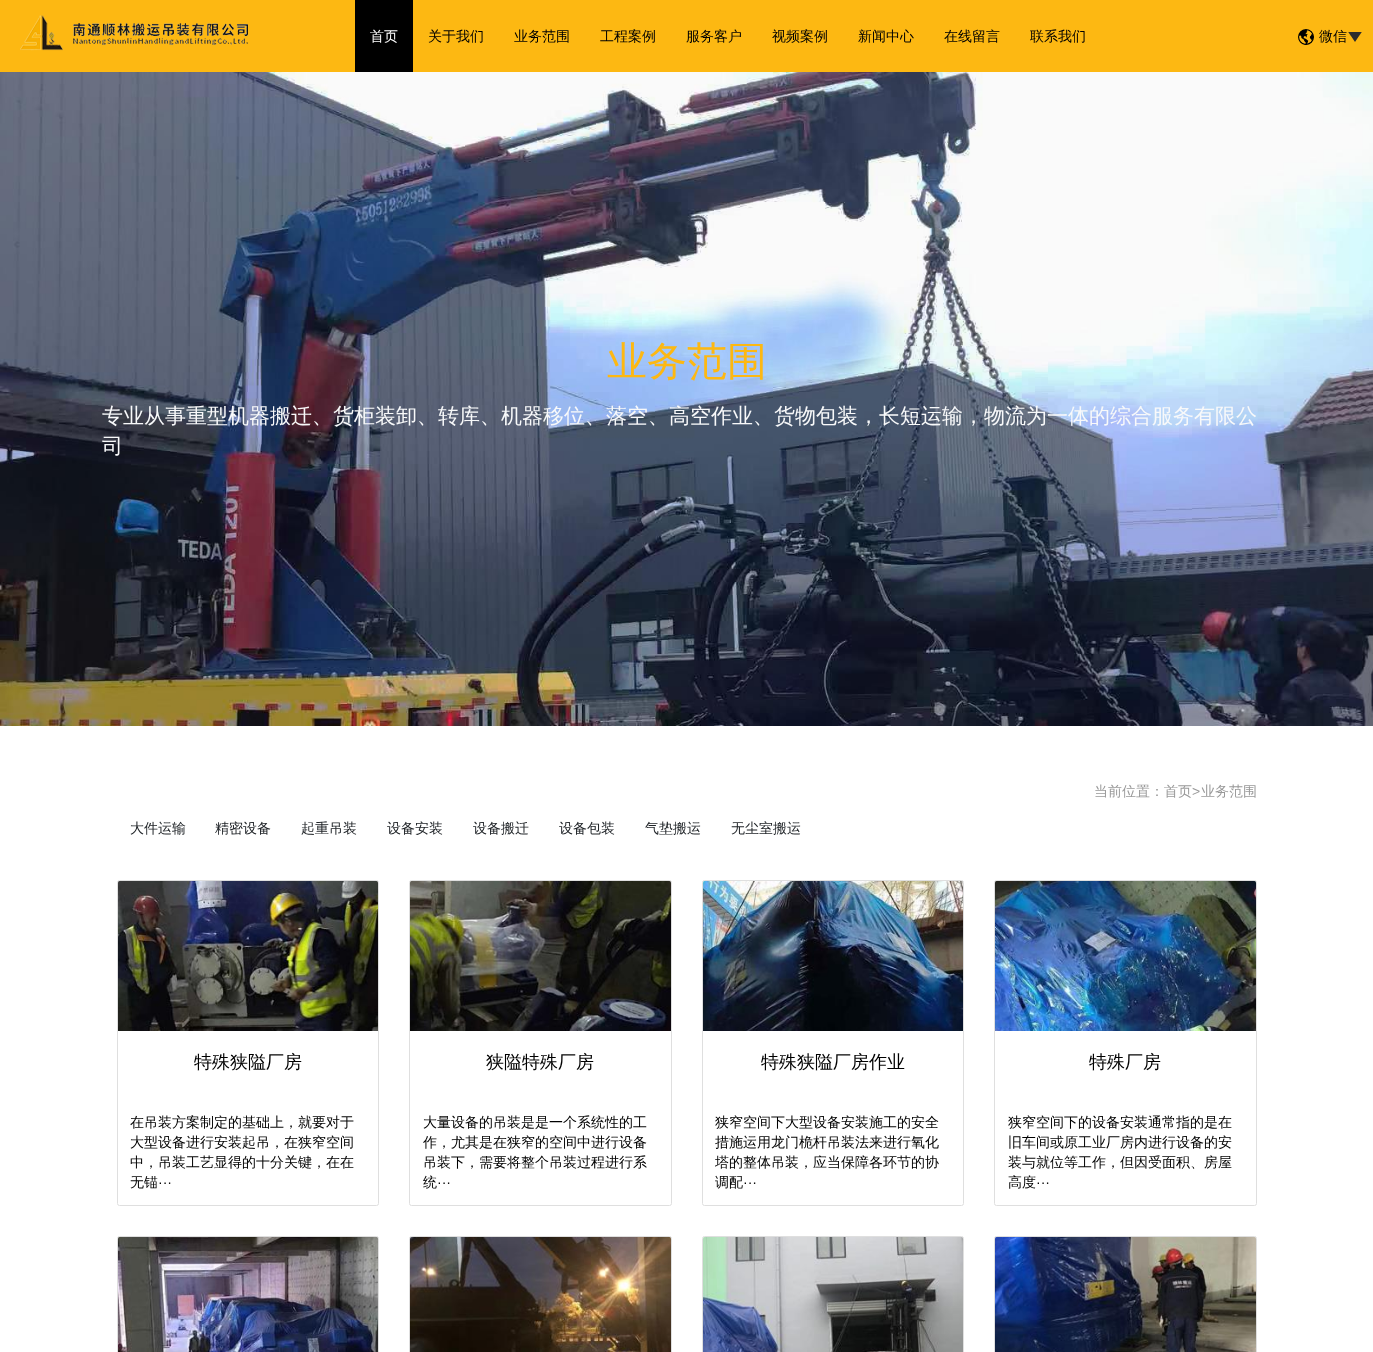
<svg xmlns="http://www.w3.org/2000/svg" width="1373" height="1352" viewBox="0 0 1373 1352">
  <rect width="100%" height="100%" fill="rgb(255,255,255)"/>
  <rect x="0" y="0" width="1373" height="72" fill="rgb(253,184,18)"/>
  <image x="20" y="15" width="228" height="36" href="pic1.png"/>
  <rect x="355" y="0" width="58" height="72" fill="rgb(0,0,0)"/>
  <text x="370" y="41" font-family="WenQuanYi Zen Hei" font-size="14" font-weight="500" fill="rgb(255,255,255)">首页</text>
  <g font-family="WenQuanYi Zen Hei" font-size="14" font-weight="500" fill="rgb(0,0,0)">
    <text x="428" y="41">关于我们</text>
    <text x="514" y="41">业务范围</text>
    <text x="600" y="41">工程案例</text>
    <text x="686" y="41">服务客户</text>
    <text x="772" y="41">视频案例</text>
    <text x="858" y="41">新闻中心</text>
    <text x="944" y="41">在线留言</text>
    <text x="1030" y="41">联系我们</text>
  </g>
  <image x="1298" y="29" width="16" height="16" href="pic2.png"/>
  <text x="1319" y="41" font-family="WenQuanYi Zen Hei" font-size="14" font-weight="500" fill="rgb(0,0,0)">微信</text>
  <image x="1348" y="32" width="14" height="10" href="pic3.png"/>
  <image x="0" y="72" width="1373" height="654" href="pic4.png"/>
  <text x="607" y="375" font-family="WenQuanYi Zen Hei" font-size="40" font-weight="500" fill="rgb(253,184,18)">业务范围</text>
  <g font-family="WenQuanYi Zen Hei" font-size="21" font-weight="500" fill="rgb(248,249,250)">
    <text>
      <tspan x="102" y="423">专业从事重型机器搬迁、货柜装卸、转库、机器移位、落空、高空作业、货物包装，长短运输，物流为一体的综合服务有限公</tspan>
      <tspan x="102" y="453">司</tspan>
    </text>
  </g>
  <text x="1094" y="796" font-family="WenQuanYi Zen Hei" font-size="14" font-weight="500" fill="rgb(153,153,153)">当前位置：首页</text>
  <text x="1192" y="796" font-family="Liberation Sans" font-size="14" fill="rgb(153,153,153)">&gt;</text>
  <text x="1201" y="796" font-family="WenQuanYi Zen Hei" font-size="14" font-weight="500" fill="rgb(153,153,153)">业务范围</text>
  <g font-family="WenQuanYi Zen Hei" font-size="14" font-weight="500" fill="rgb(33,37,41)">
    <text x="130" y="833">大件运输</text>
    <text x="215" y="833">精密设备</text>
    <text x="301" y="833">起重吊装</text>
    <text x="387" y="833">设备安装</text>
    <text x="473" y="833">设备搬迁</text>
    <text x="559" y="833">设备包装</text>
    <text x="645" y="833">气垫搬运</text>
    <text x="731" y="833">无尘室搬运</text>
  </g>
  <rect x="117.5" y="880.5" width="261" height="325" rx="2" fill="none" stroke="rgb(223,223,223)"/>
  <image x="118" y="881" width="260" height="150" href="pic5.png"/>
  <text x="194" y="1068" font-family="WenQuanYi Zen Hei" font-size="18" font-weight="500" fill="rgb(0,0,0)">特殊狭隘厂房</text>
  <g font-family="WenQuanYi Zen Hei" font-size="14" font-weight="500" fill="rgb(0,0,0)">
    <text>
      <tspan x="130" y="1127">在吊装方案制定的基础上，就要对于</tspan>
      <tspan x="130" y="1147">大型设备进行安装起吊，在狭窄空间</tspan>
      <tspan x="130" y="1167">中，吊装工艺显得的十分关键，在在</tspan>
      <tspan x="130" y="1187">无锚</tspan>
    </text>
  </g>
  <text x="158" y="1187" font-family="Liberation Sans" font-size="14" fill="rgb(0,0,0)">···</text>
  <rect x="409.5" y="880.5" width="262" height="325" rx="2" fill="none" stroke="rgb(223,223,223)"/>
  <image x="410" y="881" width="261" height="150" href="pic6.png"/>
  <text x="486" y="1068" font-family="WenQuanYi Zen Hei" font-size="18" font-weight="500" fill="rgb(0,0,0)">狭隘特殊厂房</text>
  <g font-family="WenQuanYi Zen Hei" font-size="14" font-weight="500" fill="rgb(0,0,0)">
    <text>
      <tspan x="423" y="1127">大量设备的吊装是是一个系统性的工</tspan>
      <tspan x="423" y="1147">作，尤其是在狭窄的空间中进行设备</tspan>
      <tspan x="423" y="1167">吊装下，需要将整个吊装过程进行系</tspan>
      <tspan x="423" y="1187">统</tspan>
    </text>
  </g>
  <text x="437" y="1187" font-family="Liberation Sans" font-size="14" fill="rgb(0,0,0)">···</text>
  <rect x="702.5" y="880.5" width="261" height="325" rx="2" fill="none" stroke="rgb(223,223,223)"/>
  <image x="703" y="881" width="260" height="150" href="pic7.png"/>
  <text x="761" y="1068" font-family="WenQuanYi Zen Hei" font-size="18" font-weight="500" fill="rgb(0,0,0)">特殊狭隘厂房作业</text>
  <g font-family="WenQuanYi Zen Hei" font-size="14" font-weight="500" fill="rgb(0,0,0)">
    <text>
      <tspan x="715" y="1127">狭窄空间下大型设备安装施工的安全</tspan>
      <tspan x="715" y="1147">措施运用龙门桅杆吊装法来进行氧化</tspan>
      <tspan x="715" y="1167">塔的整体吊装，应当保障各环节的协</tspan>
      <tspan x="715" y="1187">调配</tspan>
    </text>
  </g>
  <text x="743" y="1187" font-family="Liberation Sans" font-size="14" fill="rgb(0,0,0)">···</text>
  <rect x="994.5" y="880.5" width="262" height="325" rx="2" fill="none" stroke="rgb(223,223,223)"/>
  <image x="995" y="881" width="261" height="150" href="pic8.png"/>
  <text x="1089" y="1068" font-family="WenQuanYi Zen Hei" font-size="18" font-weight="500" fill="rgb(0,0,0)">特殊厂房</text>
  <g font-family="WenQuanYi Zen Hei" font-size="14" font-weight="500" fill="rgb(0,0,0)">
    <text>
      <tspan x="1008" y="1127">狭窄空间下的设备安装通常指的是在</tspan>
      <tspan x="1008" y="1147">旧车间或原工业厂房内进行设备的安</tspan>
      <tspan x="1008" y="1167">装与就位等工作，但因受面积、房屋</tspan>
      <tspan x="1008" y="1187">高度</tspan>
    </text>
  </g>
  <text x="1036" y="1187" font-family="Liberation Sans" font-size="14" fill="rgb(0,0,0)">···</text>
  <rect x="117.5" y="1236.5" width="261" height="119" rx="2" fill="none" stroke="rgb(223,223,223)"/>
  <image x="118" y="1237" width="260" height="115" href="pic9.png"/>
  <rect x="409.5" y="1236.5" width="262" height="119" rx="2" fill="none" stroke="rgb(223,223,223)"/>
  <image x="410" y="1237" width="261" height="115" href="pic10.png"/>
  <rect x="702.5" y="1236.5" width="261" height="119" rx="2" fill="none" stroke="rgb(223,223,223)"/>
  <image x="703" y="1237" width="260" height="115" href="pic11.png"/>
  <rect x="994.5" y="1236.5" width="262" height="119" rx="2" fill="none" stroke="rgb(223,223,223)"/>
  <image x="995" y="1237" width="261" height="115" href="pic12.png"/>
</svg>
